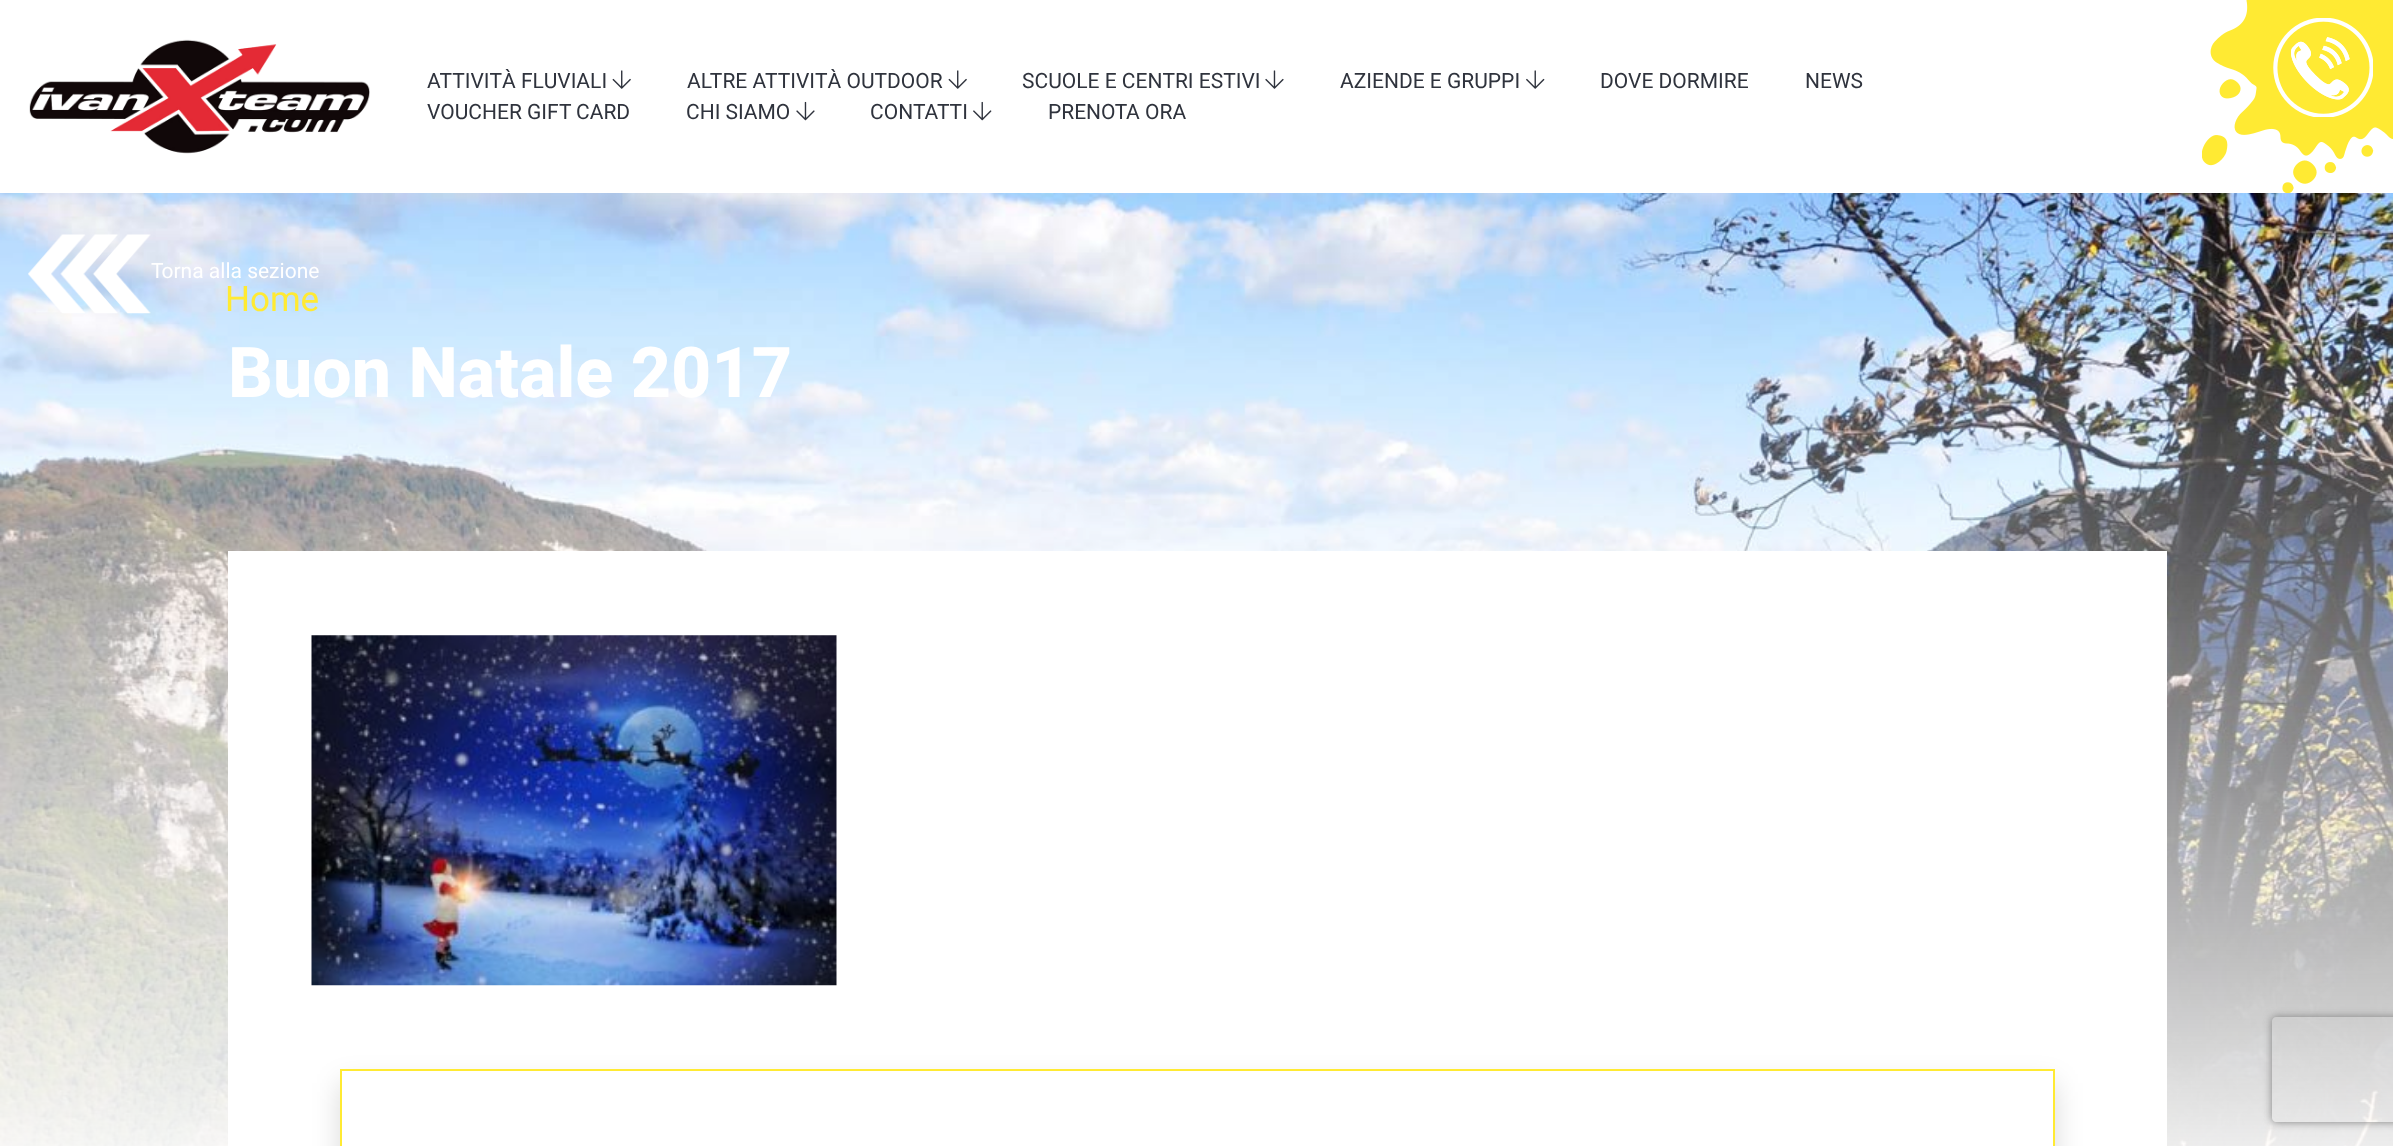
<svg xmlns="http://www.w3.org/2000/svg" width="2393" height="1146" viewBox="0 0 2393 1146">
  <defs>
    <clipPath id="clip1"><path d="M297 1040H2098V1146H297ZM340 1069H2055V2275H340Z" clip-rule="evenodd"/></clipPath>
    <clipPath id="clip2"><path d="M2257 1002H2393V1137H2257ZM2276 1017H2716C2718 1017 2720 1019 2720 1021V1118C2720 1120 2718 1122 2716 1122H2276C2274 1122 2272 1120 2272 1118V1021C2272 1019 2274 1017 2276 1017Z" clip-rule="evenodd"/></clipPath>
  </defs>
  <rect width="100%" height="100%" fill="rgb(255,255,255)"/>
  <image x="29" y="39" width="341" height="115" href="pic1.png"/>
  <text x="427" y="88" font-family="Heebo" font-size="21" fill="rgb(47,51,61)">ATTIVITÀ FLUVIALI</text>
  <image x="612" y="70" width="19" height="19" href="pic2.png"/>
  <text x="687" y="88" font-family="Heebo" font-size="21" fill="rgb(47,51,61)">ALTRE ATTIVITÀ OUTDOOR</text>
  <image x="948" y="70" width="19" height="19" href="pic2.png"/>
  <text x="1022" y="88" font-family="Heebo" font-size="21" fill="rgb(47,51,61)">SCUOLE E CENTRI ESTIVI</text>
  <image x="1265" y="70" width="19" height="19" href="pic3.png"/>
  <text x="1340" y="88" font-family="Heebo" font-size="21" fill="rgb(47,51,61)">AZIENDE E GRUPPI</text>
  <image x="1526" y="70" width="19" height="19" href="pic4.png"/>
  <g font-family="Heebo" font-size="21" fill="rgb(47,51,61)">
    <text x="1600" y="88">DOVE DORMIRE</text>
    <text x="1805" y="88">NEWS</text>
    <text x="427" y="119">VOUCHER GIFT CARD</text>
    <text x="686" y="119">CHI SIAMO</text>
  </g>
  <image x="796" y="101" width="19" height="20" href="pic5.png"/>
  <text x="870" y="119" font-family="Heebo" font-size="21" fill="rgb(47,51,61)">CONTATTI</text>
  <image x="973" y="101" width="19" height="20" href="pic6.png"/>
  <text x="1048" y="119" font-family="Heebo" font-size="21" fill="rgb(47,51,61)">PRENOTA ORA</text>
  <image x="2202" y="0" width="191" height="193" href="pic7.png"/>
  <image x="2273" y="18" width="100" height="99" href="pic8.png"/>
  <image x="0" y="193" width="2393" height="953" href="pic9.png"/>
  <image x="28" y="234" width="123" height="80" href="pic10.png"/>
  <text x="151" y="278" font-family="Heebo" font-size="21" fill="rgb(255,255,255)">Torna alla sezione</text>
  <text x="225" y="311" font-family="Heebo" font-size="35" fill="rgb(255,234,51)">Home</text>
  <text x="228" y="397" font-family="Heebo" font-size="70" font-weight="800" fill="rgb(255,255,255)">Buon Natale 2017</text>
  <rect x="228" y="551" width="1939" height="595" fill="rgb(255,255,255)"/>
  <image x="311" y="635" width="526" height="351" href="pic11.png"/>
  <g clip-path="url(#clip1)">
    <rect x="340" y="1083" width="1715" height="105" fill="rgba(0,0,0,0.15)" filter="blur(14px)"/>
  </g>
  <rect x="341" y="1070" width="1713" height="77" fill="none" stroke="rgb(255,234,51)" stroke-width="2"/>
  <g clip-path="url(#clip2)">
    <rect x="2272" y="1017" width="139" height="105" rx="4" fill="rgb(128,128,128)" filter="blur(4.5px)"/>
  </g>
</svg>
